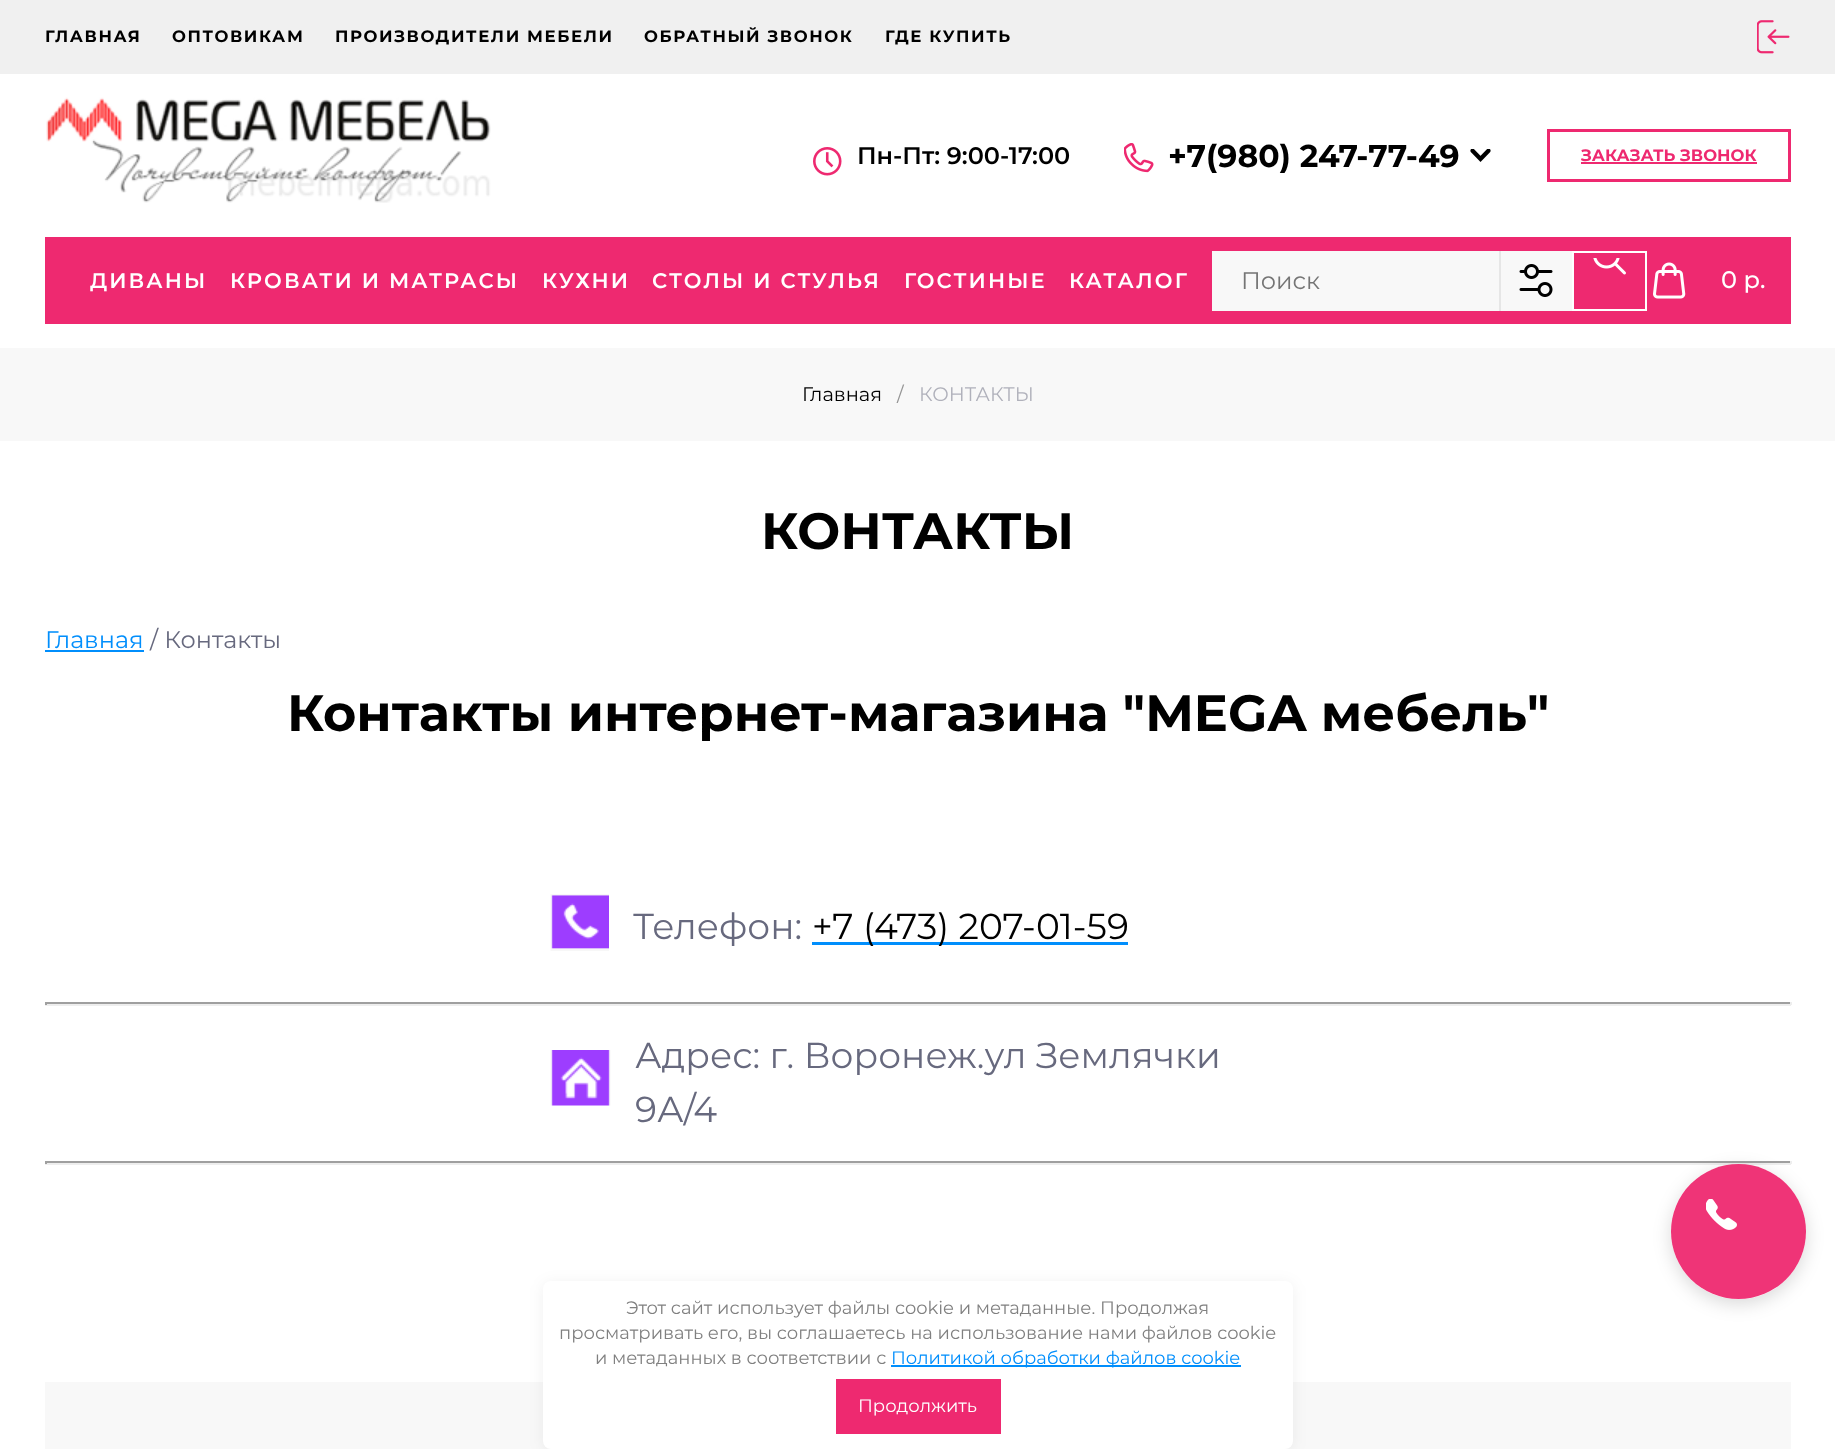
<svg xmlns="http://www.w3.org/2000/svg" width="1835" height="1449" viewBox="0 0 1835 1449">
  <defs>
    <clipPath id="clip1"><path d="M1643 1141H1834V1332H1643ZM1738.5 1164C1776 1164 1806 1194 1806 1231.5C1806 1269 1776 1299 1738.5 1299C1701 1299 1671 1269 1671 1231.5C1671 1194 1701 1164 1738.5 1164Z" clip-rule="evenodd"/></clipPath>
  </defs>
  <rect width="100%" height="100%" fill="rgb(255,255,255)"/>
  <rect x="0" y="0" width="1835" height="74" fill="rgb(240,240,240)"/>
  <g font-family="Montserrat" font-size="16.5" font-weight="bold" letter-spacing="1.6" fill="rgb(0,0,0)">
    <text x="45" y="42">ГЛАВНАЯ</text>
    <text x="172" y="42">ОПТОВИКАМ</text>
    <text x="335" y="42">ПРОИЗВОДИТЕЛИ МЕБЕЛИ</text>
    <text x="644" y="42">ОБРАТНЫЙ ЗВОНОК</text>
    <text x="885" y="42">ГДЕ КУПИТЬ</text>
  </g>
  <image x="1757" y="20" width="33" height="34" href="pic1.png"/>
  <image x="46" y="97" width="445" height="106" href="pic2.png"/>
  <image x="813" y="147" width="29" height="29" href="pic3.png"/>
  <text x="857" y="164" font-family="Montserrat" font-size="24" font-weight="600" fill="rgb(0,0,0)">Пн-Пт: 9:00-17:00</text>
  <image x="1124" y="143" width="30" height="30" href="pic4.png"/>
  <text x="1168" y="167" font-family="Montserrat" font-size="31.5" font-weight="bold" fill="rgb(0,0,0)">+7(980) 247-77-49</text>
  <image x="1470" y="149" width="21" height="13" href="pic5.png"/>
  <rect x="1548.5" y="130.5" width="241" height="50" fill="none" stroke="rgb(238,41,112)" stroke-width="3"/>
  <text x="1581" y="161" font-family="Montserrat" font-size="16.5" font-weight="bold" fill="rgb(238,41,112)">ЗАКАЗАТЬ ЗВОНОК</text>
  <rect x="1581" y="162" width="176" height="2" fill="rgb(238,41,112)"/>
  <rect x="45" y="237" width="1746" height="87" fill="rgb(238,41,112)"/>
  <g font-family="Montserrat" font-size="21" font-weight="600" letter-spacing="2.1" fill="rgb(255,255,255)">
    <text x="90" y="288">ДИВАНЫ</text>
    <text x="230" y="288">КРОВАТИ И МАТРАСЫ</text>
    <text x="542" y="288">КУХНИ</text>
    <text x="652" y="288">СТОЛЫ И СТУЛЬЯ</text>
    <text x="904" y="288">ГОСТИНЫЕ</text>
    <text x="1069" y="288">КАТАЛОГ</text>
  </g>
  <rect x="1212" y="251" width="360" height="60" fill="rgb(248,248,248)"/>
  <text x="1241" y="289" font-family="Montserrat" font-size="24" fill="rgb(117,117,117)">Поиск</text>
  <rect x="1499" y="251" width="2" height="60" fill="rgb(230,230,230)"/>
  <image x="1519" y="264" width="34" height="33" href="pic6.png"/>
  <rect x="1573" y="252" width="73" height="58" fill="none" stroke="rgb(255,255,255)" stroke-width="2"/>
  <image x="1593" y="258" width="33" height="17" href="pic7.png"/>
  <image x="1653" y="262" width="33" height="37" href="pic8.png"/>
  <text x="1721" y="288" font-family="Montserrat" font-size="24" font-weight="500" fill="rgb(255,255,255)">0 р.</text>
  <rect x="0" y="348" width="1835" height="93" fill="rgb(248,248,248)"/>
  <text x="802" y="401" font-family="Montserrat" font-size="19.5" fill="rgb(0,0,0)">Главная</text>
  <text x="897" y="401" font-family="Montserrat" font-size="19.5" fill="rgb(149,149,149)">/</text>
  <text x="919" y="401" font-family="Montserrat" font-size="19.5" fill="rgb(176,177,187)">КОНТАКТЫ</text>
  <text x="761" y="549" font-family="Montserrat" font-size="51" font-weight="bold" fill="rgb(0,0,0)">КОНТАКТЫ</text>
  <text x="45" y="648" font-family="Montserrat" font-size="24" fill="rgb(0,142,252)">Главная</text>
  <rect x="45" y="650" width="99" height="2" fill="rgb(0,142,252)"/>
  <text x="150" y="648" font-family="Montserrat" font-size="24" fill="rgb(103,105,126)">/ Контакты</text>
  <text x="287" y="731" font-family="Montserrat" font-size="51" font-weight="bold" fill="rgb(0,0,0)">Контакты интернет-магазина "MEGA мебель"</text>
  <image x="550" y="894" width="59" height="57" href="pic9.png"/>
  <text x="633" y="939" font-family="Montserrat" font-size="36" fill="rgb(103,105,126)">Телефон:</text>
  <rect x="812" y="942" width="316" height="3" fill="rgb(0,142,252)"/>
  <text x="812" y="939" font-family="Montserrat" font-size="36" fill="rgb(0,0,0)">+7 (473) 207-01-59</text>
  <rect x="45" y="1002" width="1746" height="2" fill="rgb(159,159,159)"/>
  <rect x="1790" y="1002" width="2" height="3" fill="rgb(238,238,238)"/>
  <rect x="45" y="1004" width="1746" height="2" fill="rgb(238,238,238)"/>
  <rect x="45" y="1002" width="2" height="3" fill="rgb(159,159,159)"/>
  <image x="550" y="1050" width="61" height="56" href="pic10.png"/>
  <g font-family="Montserrat" font-size="36" fill="rgb(103,105,126)">
    <text>
      <tspan x="635" y="1068">Адрес: г. Воронеж.ул Землячки</tspan>
      <tspan x="635" y="1122">9А/4</tspan>
    </text>
  </g>
  <rect x="45" y="1161" width="1746" height="2" fill="rgb(159,159,159)"/>
  <rect x="1790" y="1161" width="2" height="3" fill="rgb(238,238,238)"/>
  <rect x="45" y="1163" width="1746" height="2" fill="rgb(238,238,238)"/>
  <rect x="45" y="1161" width="2" height="3" fill="rgb(159,159,159)"/>
  <rect x="45" y="1382" width="1746" height="67" fill="rgb(248,248,248)"/>
  <g clip-path="url(#clip1)">
    <rect x="1671" y="1169" width="135" height="135" rx="67.5" fill="rgba(0,0,0,0.15)" filter="blur(9px)"/>
  </g>
  <circle cx="1738.5" cy="1231.5" r="67.5" fill="rgba(238,41,112,0.95)"/>
  <image x="1706" y="1199" width="31" height="31" href="pic11.png"/>
  <rect x="543" y="1283" width="750" height="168" rx="8" fill="rgba(0,0,0,0.06)" filter="blur(7.5px)"/>
  <rect x="543" y="1281" width="750" height="168" rx="8" fill="rgb(255,255,255)"/>
  <g font-family="Montserrat" font-size="18" fill="rgb(128,128,128)">
    <text x="626" y="1314">Этот сайт использует файлы cookie и метаданные. Продолжая</text>
    <text x="559" y="1339">просматривать его, вы соглашаетесь на использование нами файлов cookie</text>
    <text x="595" y="1364">и метаданных в соответствии с</text>
  </g>
  <rect x="891" y="1365" width="350" height="2" fill="rgb(0,142,252)"/>
  <text x="891" y="1364" font-family="Montserrat" font-size="18" fill="rgb(0,142,252)">Политикой обработки файлов cookie</text>
  <rect x="836" y="1379" width="165" height="55" fill="rgb(238,41,112)"/>
  <text x="858" y="1412" font-family="Montserrat" font-size="18" fill="rgb(255,255,255)">Продолжить</text>
</svg>
